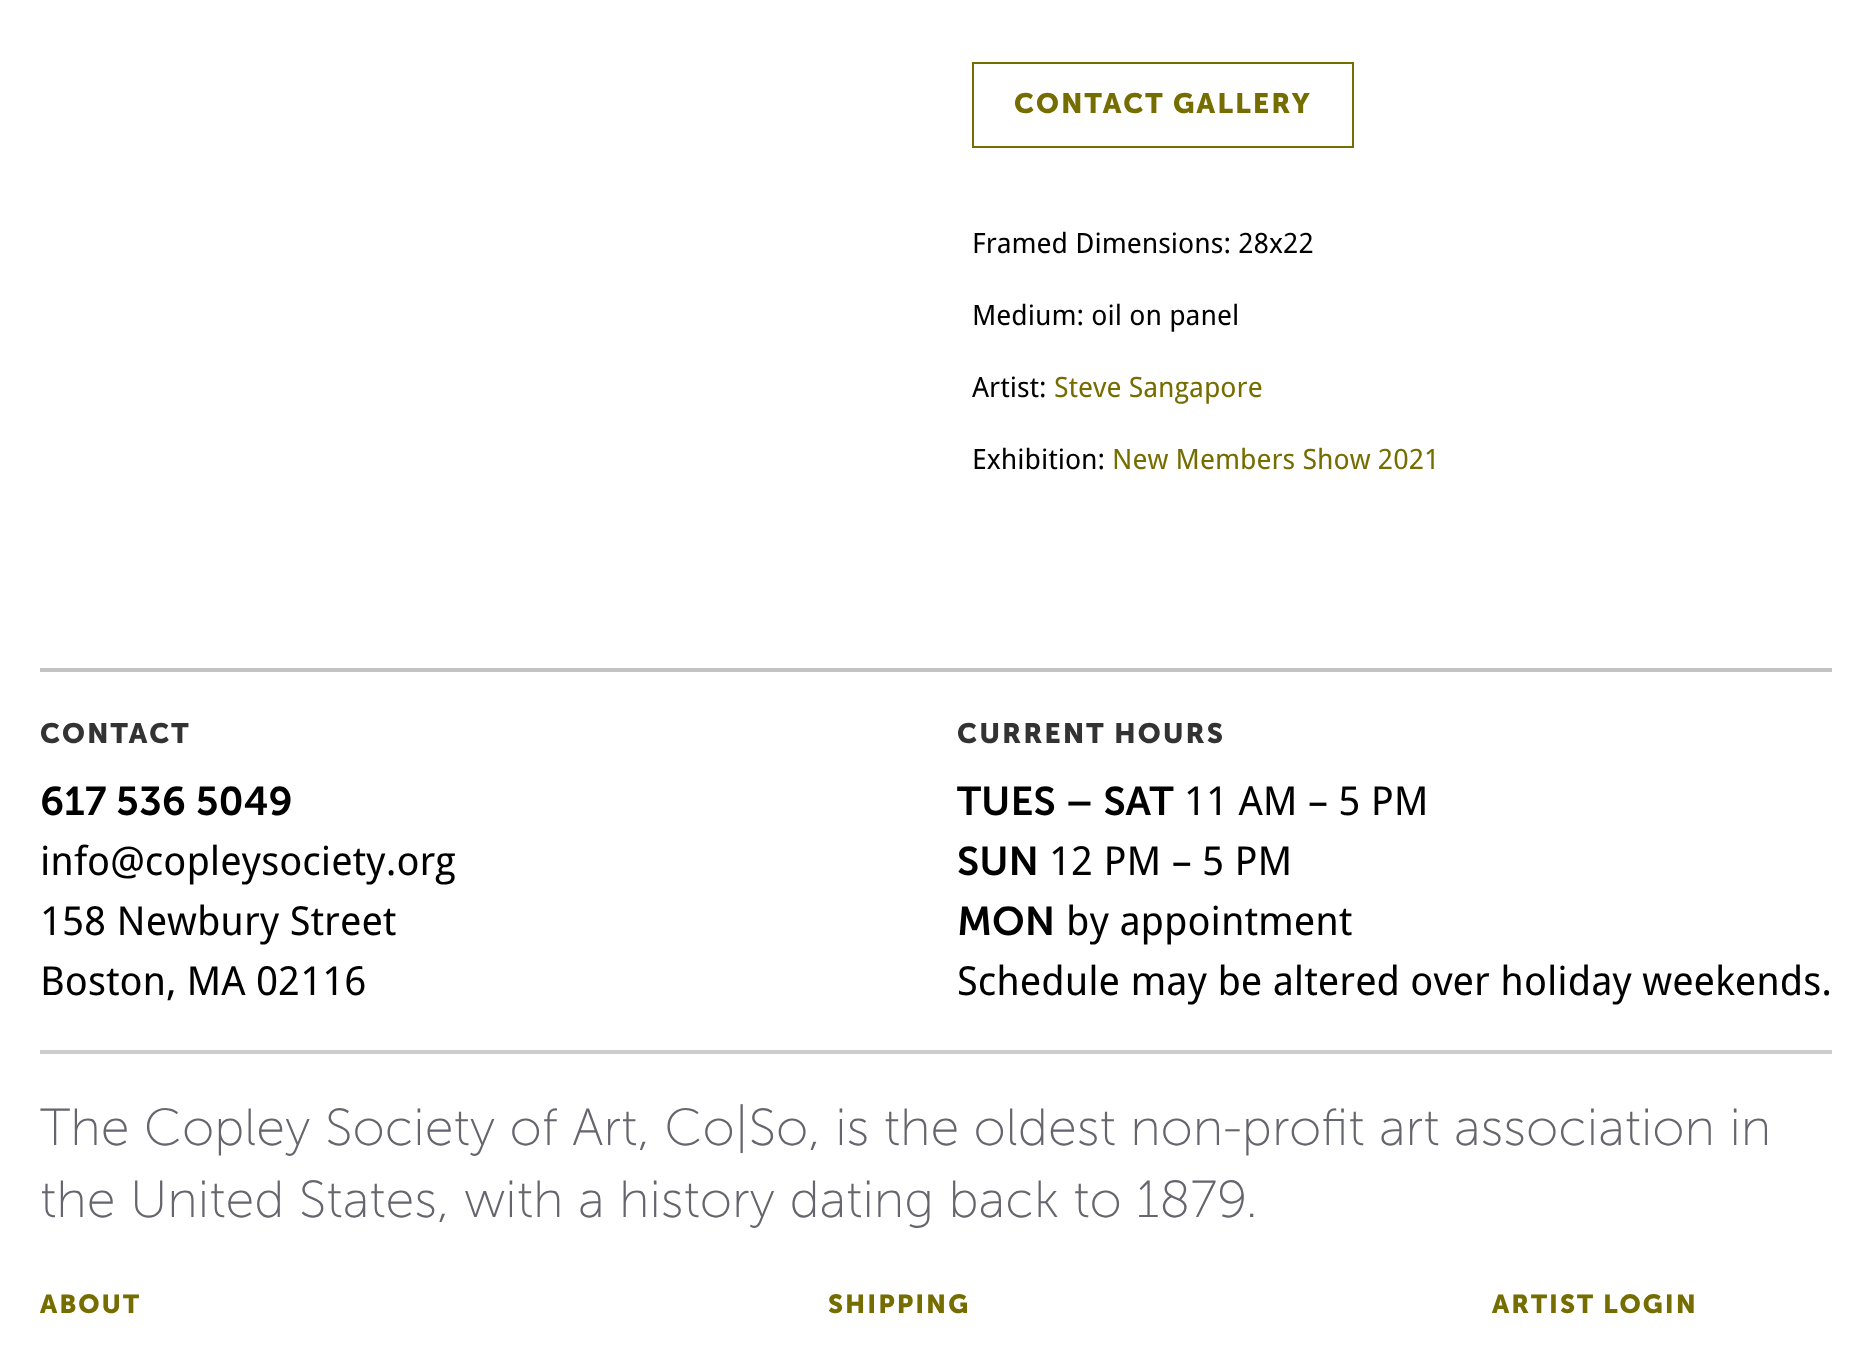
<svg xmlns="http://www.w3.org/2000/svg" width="1871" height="1345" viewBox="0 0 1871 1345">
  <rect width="100%" height="100%" fill="rgb(255,255,255)"/>
  <rect x="973" y="63" width="380" height="84" fill="none" stroke="rgb(117,109,0)" stroke-width="2"/>
  <text x="1014" y="113" font-family="Museo Sans" font-size="28" font-weight="bold" letter-spacing="2" fill="rgb(117,109,0)">CONTACT GALLERY</text>
  <g font-family="Droid Sans" font-size="28" fill="rgb(0,0,0)">
    <text x="972" y="253">Framed Dimensions: 28x22</text>
    <text x="972" y="325">Medium: oil on panel</text>
    <text x="972" y="397">Artist:</text>
  </g>
  <text x="1054" y="397" font-family="Droid Sans" font-size="28" fill="rgb(117,109,0)">Steve Sangapore</text>
  <text x="972" y="469" font-family="Droid Sans" font-size="28" fill="rgb(0,0,0)">Exhibition:</text>
  <text x="1112" y="469" font-family="Droid Sans" font-size="28" fill="rgb(117,109,0)">New Members Show 2021</text>
  <rect x="40" y="668" width="1792" height="4" fill="rgb(195,195,195)"/>
  <text x="40" y="743" font-family="Museo Sans" font-size="28" font-weight="bold" letter-spacing="2" fill="rgb(51,51,51)">CONTACT</text>
  <text x="40" y="815" font-family="Museo Sans" font-size="40" font-weight="600" fill="rgb(0,0,0)">617 536 5049</text>
  <g font-family="Droid Sans" font-size="40" fill="rgb(0,0,0)">
    <text>
      <tspan x="40" y="875">info@copleysociety.org</tspan>
      <tspan x="40" y="935">158 Newbury Street</tspan>
      <tspan x="40" y="995">Boston, MA 02116</tspan>
    </text>
  </g>
  <text x="957" y="743" font-family="Museo Sans" font-size="28" font-weight="bold" letter-spacing="2" fill="rgb(51,51,51)">CURRENT HOURS</text>
  <text x="957" y="815" font-family="Museo Sans" font-size="40" font-weight="600" fill="rgb(0,0,0)">TUES – SAT</text>
  <text x="1184" y="815" font-family="Droid Sans" font-size="40" fill="rgb(0,0,0)">11 AM – 5 PM</text>
  <text x="957" y="875" font-family="Museo Sans" font-size="40" font-weight="600" fill="rgb(0,0,0)">SUN</text>
  <text x="1049" y="875" font-family="Droid Sans" font-size="40" fill="rgb(0,0,0)">12 PM – 5 PM</text>
  <text x="957" y="935" font-family="Museo Sans" font-size="40" font-weight="600" fill="rgb(0,0,0)">MON</text>
  <g font-family="Droid Sans" font-size="40" fill="rgb(0,0,0)">
    <text x="1066" y="935">by appointment</text>
    <text x="957" y="995">Schedule may be altered over holiday weekends.</text>
  </g>
  <rect x="40" y="1050" width="1792" height="4" fill="rgb(204,204,204)"/>
  <g font-family="Museo Sans" font-size="52" font-weight="200" fill="rgb(101,101,109)">
    <text>
      <tspan x="40" y="1145">The Copley Society of Art, Co|So, is the oldest non-profit art association in</tspan>
      <tspan x="40" y="1217">the United States, with a history dating back to 1879.</tspan>
    </text>
  </g>
  <g font-family="Museo Sans" font-size="26" font-weight="bold" letter-spacing="2" fill="rgb(117,109,0)">
    <text x="40" y="1313">ABOUT</text>
    <text x="828" y="1313">SHIPPING</text>
    <text x="1492" y="1313">ARTIST LOGIN</text>
  </g>
</svg>
